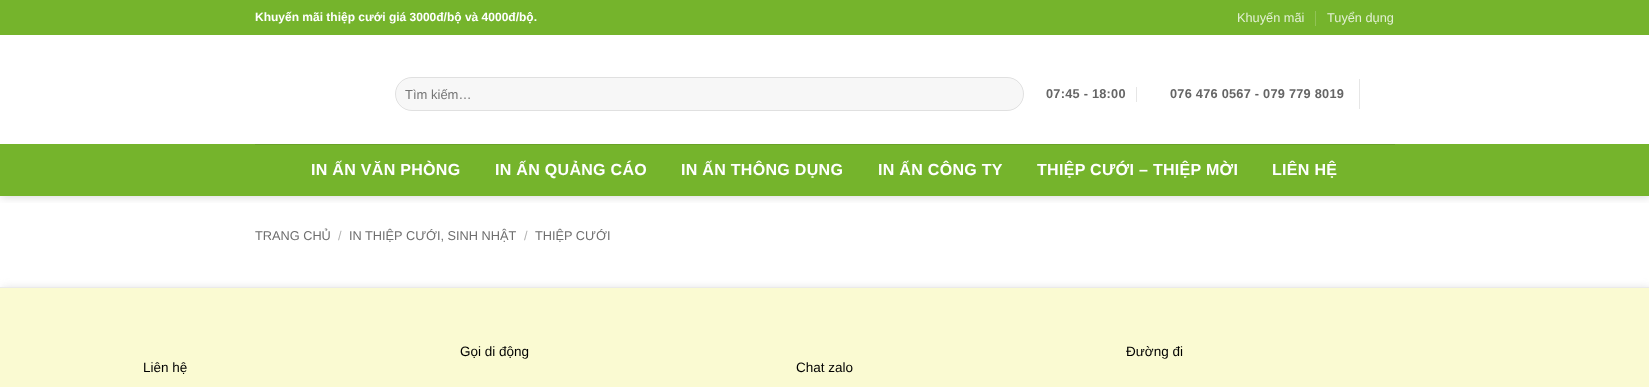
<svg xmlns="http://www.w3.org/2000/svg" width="1649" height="387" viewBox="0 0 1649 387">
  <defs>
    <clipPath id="clip1"><rect x="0" y="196" width="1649" height="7"/></clipPath>
  </defs>
  <rect width="100%" height="100%" fill="rgb(255,255,255)"/>
  <g clip-path="url(#clip1)">
    <rect x="1" y="1" width="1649" height="196" fill="rgba(0,0,0,0.15)" filter="blur(5px)"/>
  </g>
  <rect x="0" y="0" width="1649" height="35" fill="rgb(117,180,44)"/>
  <text x="255" y="21" font-family="Liberation Sans" font-size="12" font-weight="bold" fill="rgb(255,255,255)">Khuyến mãi thiệp cưới giá 3000đ/bộ và 4000đ/bộ.</text>
  <text x="1237" y="22" font-family="Liberation Sans" font-size="12.75" fill="rgb(227,240,213)">Khuyến mãi</text>
  <rect x="1315" y="11" width="1" height="15" fill="rgb(145,195,86)"/>
  <text x="1327" y="22" font-family="Liberation Sans" font-size="12.75" fill="rgb(227,240,213)">Tuyển dụng</text>
  <rect x="395" y="77" width="629" height="34" rx="17" fill="rgb(247,247,247)"/>
  <rect x="395.5" y="77.5" width="628" height="33" rx="16.5" fill="none" stroke="rgba(0,0,0,0.09)"/>
  <text x="405" y="99" font-family="Liberation Sans" font-size="13" fill="rgb(117,117,117)">Tìm kiếm…</text>
  <text x="1046" y="98" font-family="Liberation Sans" font-size="12.75" font-weight="bold" letter-spacing="0.25" fill="rgb(101,101,101)">07:45 - 18:00</text>
  <rect x="1136" y="87" width="1" height="15" fill="rgb(230,230,230)"/>
  <text x="1170" y="98" font-family="Liberation Sans" font-size="12.75" font-weight="bold" letter-spacing="0.25" fill="rgb(101,101,101)">076 476 0567 - 079 779 8019</text>
  <rect x="1359" y="79" width="1" height="30" fill="rgb(230,230,230)"/>
  <rect x="0" y="144" width="1649" height="52" fill="rgb(117,180,44)"/>
  <rect x="255" y="144" width="1140" height="1" fill="rgb(105,162,40)"/>
  <g font-family="Liberation Sans" font-size="16" font-weight="bold" letter-spacing="0.3" fill="rgb(255,255,255)">
    <text x="311" y="175">IN ẤN VĂN PHÒNG</text>
    <text x="495" y="175">IN ẤN QUẢNG CÁO</text>
    <text x="681" y="175">IN ẤN THÔNG DỤNG</text>
    <text x="878" y="175">IN ẤN CÔNG TY</text>
    <text x="1037" y="175">THIỆP CƯỚI – THIỆP MỜI</text>
    <text x="1272" y="175">LIÊN HỆ</text>
  </g>
  <text x="255" y="240" font-family="Liberation Sans" font-size="12.75" fill="rgb(110,110,110)">TRANG CHỦ</text>
  <text x="338" y="240" font-family="Liberation Sans" font-size="12.75" fill="rgb(178,178,178)">/</text>
  <text x="349" y="240" font-family="Liberation Sans" font-size="12.75" fill="rgb(110,110,110)">IN THIỆP CƯỚI, SINH NHẬT</text>
  <text x="524" y="240" font-family="Liberation Sans" font-size="12.75" fill="rgb(178,178,178)">/</text>
  <text x="535" y="240" font-family="Liberation Sans" font-size="12.75" fill="rgb(110,110,110)">THIỆP CƯỚI</text>
  <rect x="2" y="288" width="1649" height="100" fill="rgb(222,222,222)" filter="blur(4.5px)"/>
  <rect x="0" y="288" width="1649" height="99" fill="rgb(250,250,210)"/>
  <rect x="0" y="287" width="1649" height="1" fill="rgb(234,234,234)"/>
  <g font-family="Liberation Sans" font-size="13.5" fill="rgb(0,0,0)">
    <text x="460" y="356">Gọi di động</text>
    <text x="1126" y="356">Đường đi</text>
    <text x="143" y="372">Liên hệ</text>
    <text x="796" y="372">Chat zalo</text>
  </g>
</svg>
